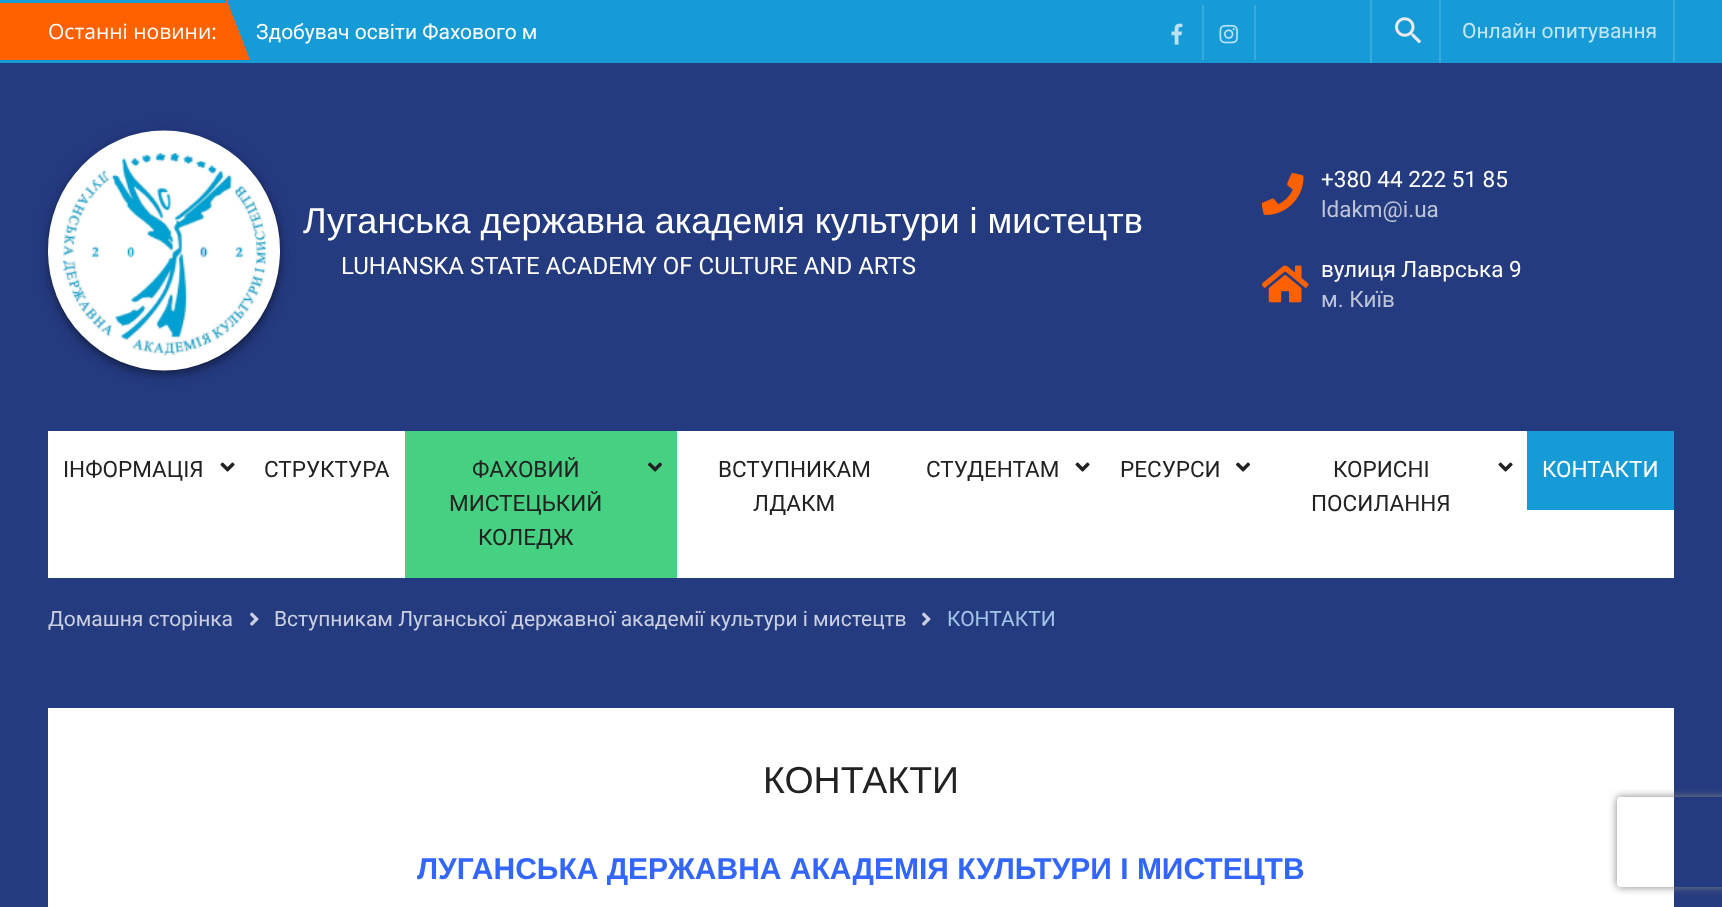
<svg xmlns="http://www.w3.org/2000/svg" width="1722" height="907" viewBox="0 0 1722 907">
  <defs>
    <clipPath id="clip1"><path d="M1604 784H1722V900H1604ZM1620 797H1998C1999.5 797 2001 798.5 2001 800V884C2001 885.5 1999.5 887 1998 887H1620C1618.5 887 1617 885.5 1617 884V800C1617 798.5 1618.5 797 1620 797Z" clip-rule="evenodd"/></clipPath>
  </defs>
  <rect width="100%" height="100%" fill="rgb(37,59,128)"/>
  <rect x="0" y="0" width="1722" height="63" fill="rgb(23,155,215)"/>
  <rect x="0" y="3" width="226" height="57" fill="rgb(255,96,0)"/>
  <text x="48" y="39" font-family="Open Sans" font-size="21" fill="rgb(255,255,255)">Останні новини:</text>
  <path d="M226 60V-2L250 60Z" fill="rgb(255,96,0)"/>
  <text x="256" y="39" font-family="Roboto" font-size="21" fill="rgb(255,255,255)">Здобувач освіти Фахового м</text>
  <rect x="1202" y="5" width="2" height="55" fill="rgb(58,170,221)"/>
  <image x="1171" y="23" width="12" height="22" href="pic1.png"/>
  <rect x="1254" y="5" width="2" height="55" fill="rgb(58,170,221)"/>
  <image x="1219" y="24" width="19" height="20" href="pic2.png"/>
  <rect x="1439" y="0" width="2" height="63" fill="rgb(58,170,221)"/>
  <rect x="1370" y="0" width="2" height="63" fill="rgb(58,170,221)"/>
  <image x="1395" y="17" width="27" height="27" href="pic3.png"/>
  <rect x="1673" y="0" width="2" height="62" fill="rgb(58,170,221)"/>
  <text x="1462" y="38" font-family="Roboto" font-size="21" fill="rgb(197,230,245)">Онлайн опитування</text>
  <rect x="50" y="135" width="229" height="237" rx="114.5" fill="rgba(0,0,0,0.3)" filter="blur(3px)"/>
  <rect x="48" y="132" width="233" height="240" rx="116.5" fill="rgba(0,0,0,0.12)" filter="blur(7.5px)"/>
  <rect x="48" y="137" width="233" height="240" rx="116.5" fill="rgba(0,0,0,0.14)" filter="blur(4px)"/>
  <ellipse cx="164" cy="250.5" rx="116" ry="120" fill="rgb(255,255,255)"/>
  <image x="63" y="153" width="203" height="203" href="pic4.png"/>
  <text x="303" y="233" font-family="Liberation Sans" font-size="36" fill="rgb(255,255,255)">Луганська державна академія культури і мистецтв</text>
  <text x="341" y="274" font-family="Roboto" font-size="24" fill="rgb(255,255,255)">LUHANSKA STATE ACADEMY OF CULTURE AND ARTS</text>
  <image x="1262" y="173" width="42" height="42" href="pic5.png"/>
  <text x="1321" y="187" font-family="Roboto" font-size="22.5" fill="rgb(255,255,255)">+380 44 222 51 85</text>
  <text x="1321" y="217" font-family="Roboto" font-size="22.5" fill="rgb(190,196,217)">ldakm@i.ua</text>
  <image x="1262" y="265" width="47" height="38" href="pic6.png"/>
  <text x="1321" y="277" font-family="Roboto" font-size="22.5" fill="rgb(255,255,255)">вулиця Лаврська 9</text>
  <text x="1321" y="307" font-family="Roboto" font-size="22.5" fill="rgb(190,196,217)">м. Київ</text>
  <rect x="48" y="431" width="1626" height="147" fill="rgb(255,255,255)"/>
  <text x="63" y="477" font-family="Roboto" font-size="22.5" fill="rgb(34,34,34)">ІНФОРМАЦІЯ</text>
  <image x="220" y="462" width="15" height="10" href="pic7.png"/>
  <text x="264" y="477" font-family="Roboto" font-size="22.5" fill="rgb(34,34,34)">СТРУКТУРА</text>
  <rect x="405" y="431" width="272" height="147" fill="rgb(70,208,129)"/>
  <text x="472" y="477" font-family="Roboto" font-size="22.5" fill="rgb(34,34,34)">ФАХОВИЙ</text>
  <image x="648" y="462" width="14" height="10" href="pic8.png"/>
  <g font-family="Roboto" font-size="22.5" fill="rgb(34,34,34)">
    <text x="449" y="511">МИСТЕЦЬКИЙ</text>
    <text x="478" y="545">КОЛЕДЖ</text>
    <text x="718" y="477">ВСТУПНИКАМ</text>
    <text x="753" y="511">ЛДАКМ</text>
    <text x="926" y="477">СТУДЕНТАМ</text>
  </g>
  <image x="1075" y="462" width="15" height="10" href="pic7.png"/>
  <text x="1120" y="477" font-family="Roboto" font-size="22.5" fill="rgb(34,34,34)">РЕСУРСИ</text>
  <image x="1236" y="462" width="14" height="10" href="pic9.png"/>
  <text x="1333" y="477" font-family="Roboto" font-size="22.5" fill="rgb(34,34,34)">КОРИСНІ</text>
  <image x="1498" y="462" width="15" height="10" href="pic7.png"/>
  <text x="1311" y="511" font-family="Roboto" font-size="22.5" fill="rgb(34,34,34)">ПОСИЛАННЯ</text>
  <rect x="1527" y="431" width="147" height="79" fill="rgb(23,155,215)"/>
  <text x="1542" y="477" font-family="Roboto" font-size="22.5" fill="rgb(255,255,255)">КОНТАКТИ</text>
  <text x="48" y="626" font-family="Roboto" font-size="21" fill="rgb(203,208,225)">Домашня сторінка</text>
  <image x="250" y="612" width="9" height="14" href="pic10.png"/>
  <text x="274" y="626" font-family="Roboto" font-size="21" fill="rgb(203,208,225)">Вступникам Луганської державної академії культури і мистецтв</text>
  <image x="922" y="612" width="9" height="14" href="pic10.png"/>
  <text x="947" y="626" font-family="Roboto" font-size="21" fill="rgb(160,197,232)">КОНТАКТИ</text>
  <rect x="48" y="708" width="1626" height="199" fill="rgb(255,255,255)"/>
  <text x="763" y="793" font-family="Liberation Sans" font-size="37.5" fill="rgb(34,34,34)">КОНТАКТИ</text>
  <text x="417" y="879" font-family="Liberation Sans" font-size="30" font-weight="bold" fill="rgb(51,102,255)">ЛУГАНСЬКА ДЕРЖАВНА АКАДЕМІЯ КУЛЬТУРИ І МИСТЕЦТВ</text>
  <g clip-path="url(#clip1)">
    <rect x="1617" y="797" width="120" height="90" rx="3" fill="rgb(128,128,128)" filter="blur(4px)"/>
  </g>
</svg>
